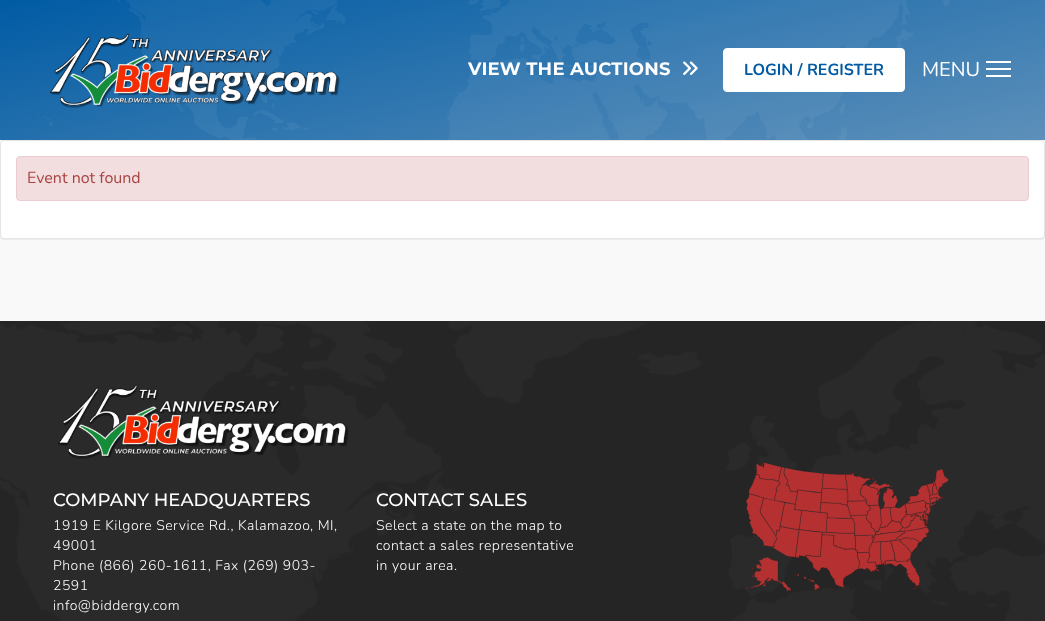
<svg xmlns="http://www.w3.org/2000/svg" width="1045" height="621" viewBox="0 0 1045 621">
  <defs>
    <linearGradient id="g1" gradientUnits="userSpaceOnUse" x1="481" y1="-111" x2="564" y2="251"><stop offset="0" stop-color="rgb(0,91,164)"/><stop offset="1" stop-color="rgb(93,144,186)"/></linearGradient>
  </defs>
  <rect width="100%" height="100%" fill="rgb(249,249,249)"/>
  <rect x="0" y="141" width="1045" height="99" rx="4" fill="rgba(0,0,0,0.05)" filter="blur(0.5px)"/>
  <rect x="0" y="0" width="1045" height="140" fill="url(#g1)"/>
  <image x="39" y="0" width="912" height="140" href="pic1.png"/>
  <image x="49" y="33" width="291" height="75" href="pic2.png"/>
  <text x="468" y="75" font-family="Montserrat" font-size="18" font-weight="bold" letter-spacing="0.25" fill="rgb(255,255,255)">VIEW THE AUCTIONS</text>
  <image x="683" y="61" width="15" height="14" href="pic3.png"/>
  <rect x="723.5" y="48.5" width="181" height="43" rx="3.5" fill="rgb(255,255,255)" stroke="rgb(255,255,255)"/>
  <text x="744" y="75" font-family="Nunito" font-size="16" font-weight="bold" fill="rgb(0,91,164)">LOGIN / REGISTER</text>
  <rect x="0.5" y="140.5" width="1044" height="98" rx="3.5" fill="rgb(255,255,255)" stroke="rgb(229,229,229)"/>
  <rect x="16.5" y="156.5" width="1012" height="44" rx="3.5" fill="rgb(242,222,222)" stroke="rgb(235,204,209)"/>
  <text x="27" y="183" font-family="Nunito" font-size="16" fill="rgb(169,68,66)">Event not found</text>
  <rect x="0" y="321" width="1045" height="300" fill="rgb(37,37,37)"/>
  <image x="0" y="321" width="1045" height="300" href="pic4.png"/>
  <image x="58" y="384" width="291" height="75" href="pic5.png"/>
  <text x="53" y="506" font-family="Montserrat" font-size="18" font-weight="500" fill="rgb(255,255,255)">COMPANY HEADQUARTERS</text>
  <g font-family="Nunito" font-size="14" font-weight="300" letter-spacing="0.5" fill="rgb(255,255,255)">
    <text>
      <tspan x="53" y="530">1919 E Kilgore Service Rd., Kalamazoo, MI,</tspan>
      <tspan x="53" y="550">49001</tspan>
      <tspan x="53" y="570">Phone (866) 260-1611, Fax (269) 903-</tspan>
      <tspan x="53" y="590">2591</tspan>
      <tspan x="53" y="610">info@biddergy.com</tspan>
    </text>
  </g>
  <text x="376" y="506" font-family="Montserrat" font-size="18" font-weight="500" fill="rgb(255,255,255)">CONTACT SALES</text>
  <g font-family="Nunito" font-size="14" font-weight="300" letter-spacing="0.5" fill="rgb(255,255,255)">
    <text>
      <tspan x="376" y="530">Select a state on the map to</tspan>
      <tspan x="376" y="550">contact a sales representative</tspan>
      <tspan x="376" y="570">in your area.</tspan>
    </text>
  </g>
  <image x="744" y="462" width="205" height="130" href="pic6.png"/>
  <text x="922" y="76" font-family="Nunito" font-size="20" fill="rgb(255,255,255)">MENU</text>
  <rect x="986" y="61" width="25" height="2" fill="rgb(255,255,255)"/>
  <rect x="986" y="68" width="25" height="2" fill="rgb(255,255,255)"/>
  <rect x="986" y="75" width="25" height="2" fill="rgb(255,255,255)"/>
</svg>
